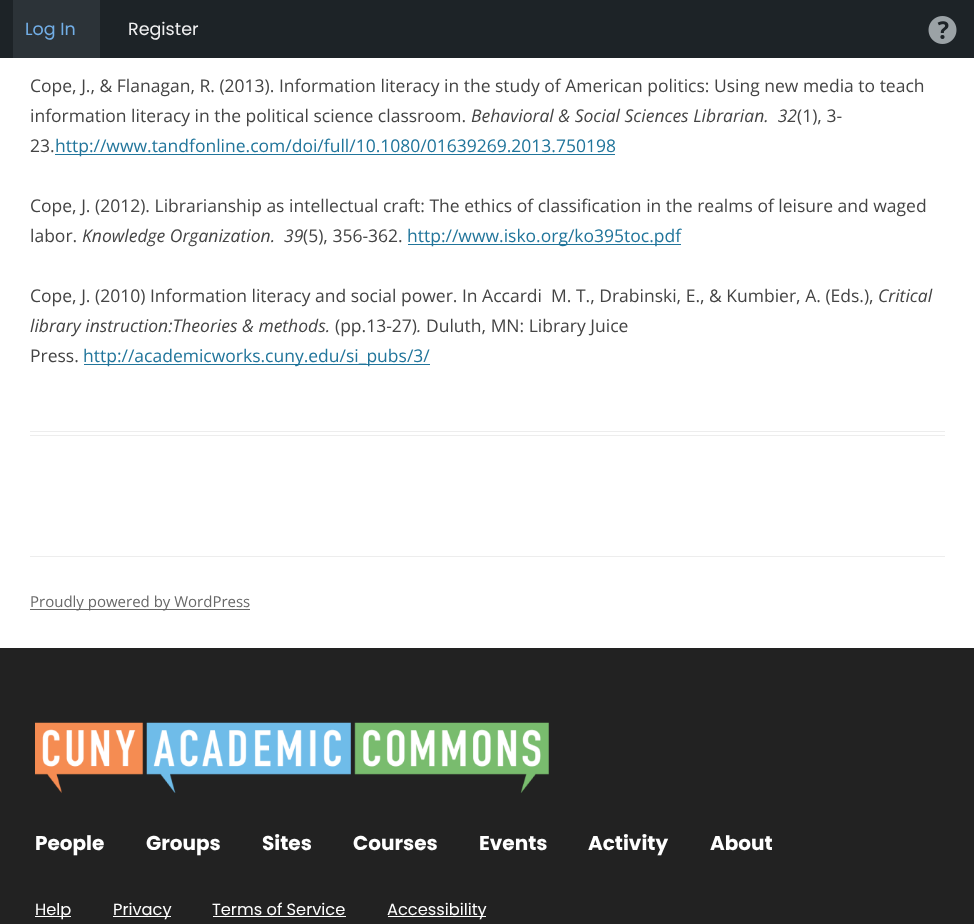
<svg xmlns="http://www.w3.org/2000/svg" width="974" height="924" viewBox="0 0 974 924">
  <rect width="100%" height="100%" fill="rgb(34,34,34)"/>
  <rect x="0" y="0" width="974" height="58" fill="rgb(29,35,39)"/>
  <rect x="13" y="0" width="87" height="58" fill="rgb(44,51,56)"/>
  <text x="25" y="35" font-family="Poppins" font-size="17.5" fill="rgb(114,174,230)">Log In</text>
  <text x="128" y="35" font-family="Poppins" font-size="17.5" fill="rgb(240,240,241)">Register</text>
  <image x="928" y="16" width="29" height="28" href="pic1.png"/>
  <rect x="0" y="58" width="974" height="590" fill="rgb(255,255,255)"/>
  <rect x="30" y="431" width="915" height="1" fill="rgb(237,237,237)"/>
  <rect x="30" y="435" width="915" height="1" fill="rgb(237,237,237)"/>
  <g font-family="Open Sans" font-size="17.5" fill="rgb(68,68,68)">
    <text>
      <tspan x="30" y="92">Cope, J., &amp; Flanagan, R. (2013). Information literacy in the study of American politics: Using new media to teach</tspan>
      <tspan x="30" y="122">information literacy in the political science classroom.</tspan>
    </text>
  </g>
  <text x="471" y="122" font-family="Open Sans" font-size="17.5" font-style="italic" fill="rgb(68,68,68)" xml:space="preserve">Behavioral &amp; Social Sciences Librarian.  32</text>
  <g font-family="Open Sans" font-size="17.5" fill="rgb(68,68,68)">
    <text x="797" y="122">(1), 3-</text>
    <text x="30" y="152">23.</text>
  </g>
  <rect x="55" y="154" width="560" height="1" fill="rgb(33,117,155)"/>
  <text x="55" y="152" font-family="Open Sans" font-size="17.5" fill="rgb(33,117,155)">http://www.tandfonline.com/doi/full/10.1080/01639269.2013.750198</text>
  <g font-family="Open Sans" font-size="17.5" fill="rgb(68,68,68)">
    <text>
      <tspan x="30" y="212">Cope, J. (2012). Librarianship as intellectual craft: The ethics of classification in the realms of leisure and waged</tspan>
      <tspan x="30" y="242">labor.</tspan>
    </text>
  </g>
  <text x="82" y="242" font-family="Open Sans" font-size="17.5" font-style="italic" fill="rgb(68,68,68)" xml:space="preserve">Knowledge Organization.  39</text>
  <text x="303" y="242" font-family="Open Sans" font-size="17.5" fill="rgb(68,68,68)">(5), 356-362.</text>
  <rect x="408" y="244" width="273" height="1" fill="rgb(33,117,155)"/>
  <text x="407" y="242" font-family="Open Sans" font-size="17.5" fill="rgb(33,117,155)">http://www.isko.org/ko395toc.pdf</text>
  <text x="30" y="302" font-family="Open Sans" font-size="17.5" fill="rgb(68,68,68)" xml:space="preserve">Cope, J. (2010) Information literacy and social power. In Accardi  M. T., Drabinski, E., &amp; Kumbier, A. (Eds.),</text>
  <g font-family="Open Sans" font-size="17.5" font-style="italic" fill="rgb(68,68,68)">
    <text x="878" y="302">Critical</text>
    <text x="30" y="332">library instruction:Theories &amp; methods.</text>
  </g>
  <text x="335" y="332" font-family="Open Sans" font-size="17.5" fill="rgb(68,68,68)">(pp.13-27)</text>
  <text x="417" y="332" font-family="Open Sans" font-size="17.5" font-style="italic" fill="rgb(68,68,68)">.</text>
  <g font-family="Open Sans" font-size="17.5" fill="rgb(68,68,68)">
    <text x="426" y="332">Duluth, MN: Library Juice</text>
    <text x="30" y="362">Press.</text>
  </g>
  <rect x="84" y="364" width="346" height="1" fill="rgb(33,117,155)"/>
  <text x="83" y="362" font-family="Open Sans" font-size="17.5" fill="rgb(33,117,155)">http://academicworks.cuny.edu/si_pubs/3/</text>
  <rect x="30" y="556" width="915" height="1" fill="rgb(237,237,237)"/>
  <rect x="30" y="609" width="220" height="1" fill="rgb(104,104,104)"/>
  <text x="30" y="607" font-family="Open Sans" font-size="15" fill="rgb(104,104,104)">Proudly powered by WordPress</text>
  <image x="35" y="722" width="514" height="71" href="pic2.png"/>
  <g font-family="Poppins" font-size="20" font-weight="bold" fill="rgb(255,255,255)">
    <text x="35" y="850">People</text>
    <text x="146" y="850">Groups</text>
    <text x="262" y="850">Sites</text>
    <text x="353" y="850">Courses</text>
    <text x="479" y="850">Events</text>
    <text x="588" y="850">Activity</text>
    <text x="710" y="850">About</text>
  </g>
  <rect x="35" y="916" width="36" height="1" fill="rgb(255,255,255)"/>
  <text x="35" y="915" font-family="Poppins" font-size="16.25" fill="rgb(255,255,255)">Help</text>
  <rect x="113" y="916" width="58" height="1" fill="rgb(255,255,255)"/>
  <g font-family="Poppins" font-size="16.25" fill="rgb(255,255,255)">
    <text x="113" y="915">Privacy</text>
    <text x="212" y="915">Terms of Service</text>
  </g>
  <rect x="213" y="916" width="133" height="1" fill="rgb(255,255,255)"/>
  <rect x="388" y="916" width="98" height="1" fill="rgb(255,255,255)"/>
  <text x="387" y="915" font-family="Poppins" font-size="16.25" fill="rgb(255,255,255)">Accessibility</text>
</svg>
